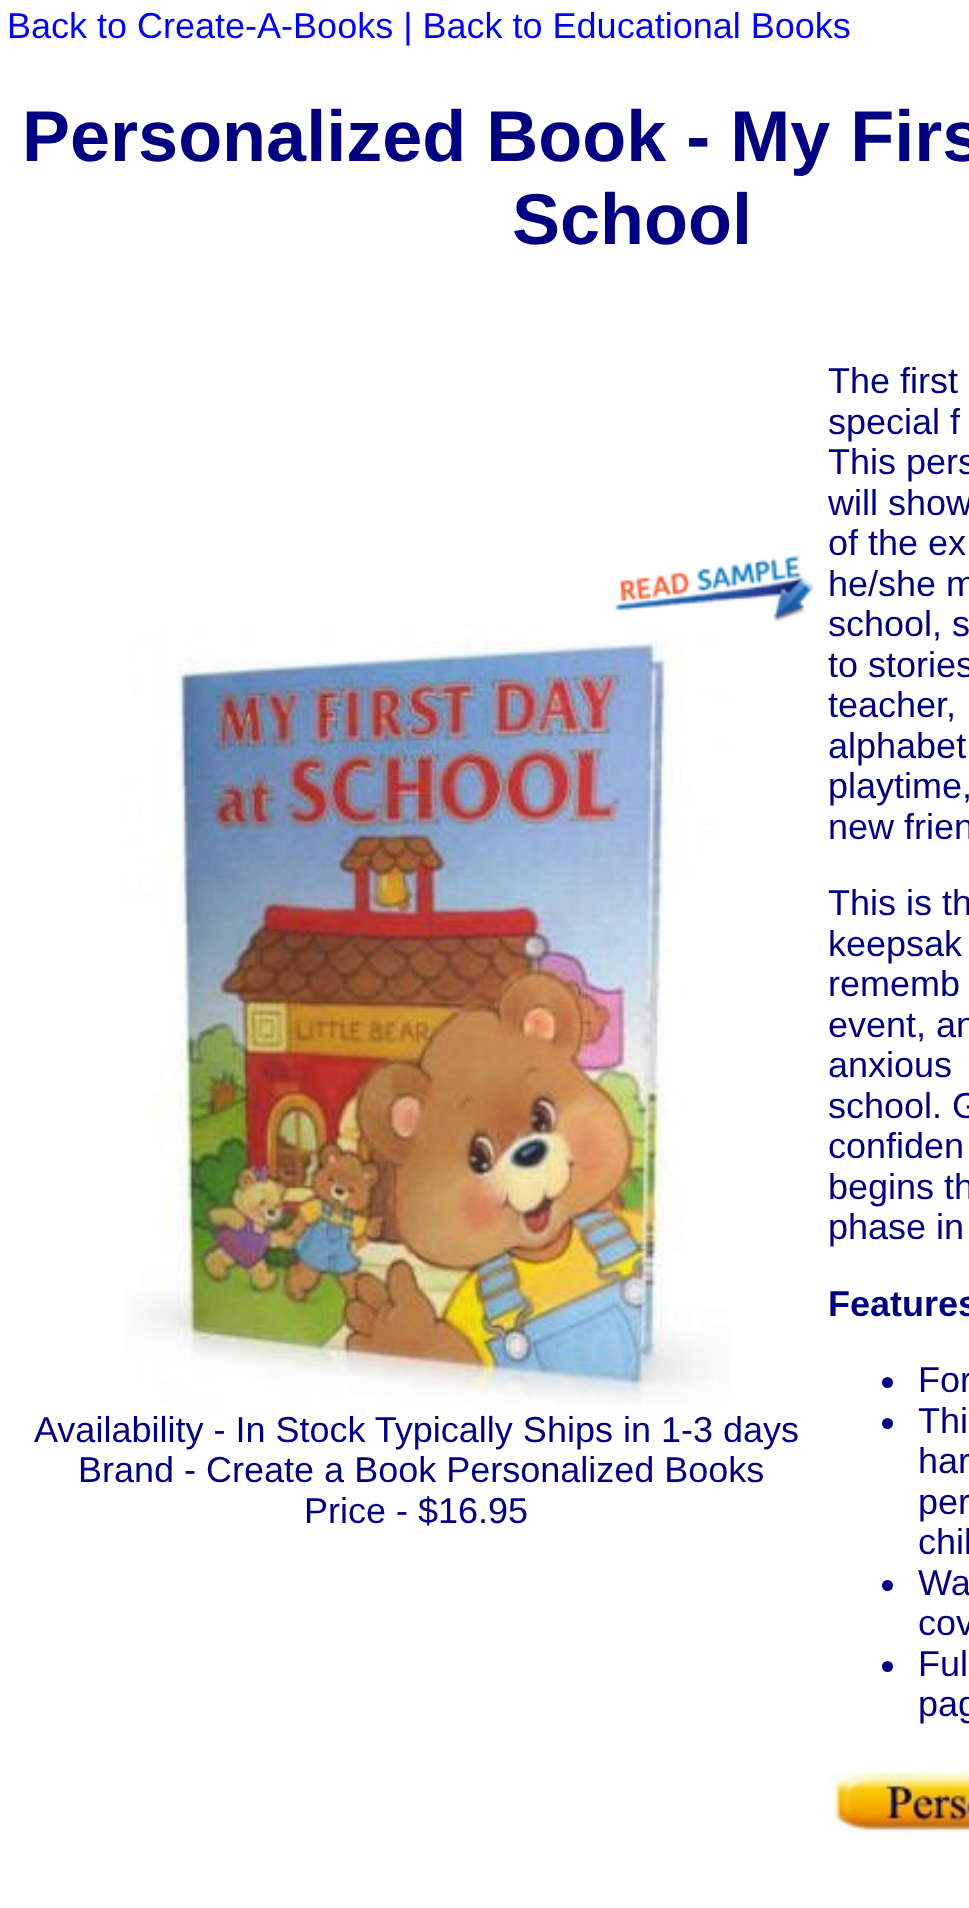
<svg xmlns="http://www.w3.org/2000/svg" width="969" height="1908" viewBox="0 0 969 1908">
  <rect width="100%" height="100%" fill="rgb(255,255,255)"/>
  <text x="7" y="38" font-family="Liberation Sans" font-size="36" fill="rgb(0,0,255)">Back to Create-A-Books | Back to Educational Books</text>
  <g font-family="Liberation Sans" font-size="72" font-weight="bold" fill="rgb(0,0,128)">
    <text x="22" y="161">Personalized Book - My Firs</text>
    <text x="512" y="244">School</text>
  </g>
  <image x="614" y="555" width="201" height="67" href="pic1.png"/>
  <image x="124" y="623" width="606" height="788" href="pic2.png"/>
  <g font-family="Liberation Sans" font-size="36" fill="rgb(0,0,128)">
    <text x="34" y="1442">Availability - In Stock Typically Ships in 1-3 days</text>
    <text x="78" y="1482">Brand - Create a Book Personalized Books</text>
    <text x="304" y="1523">Price - $16.95</text>
    <text>
      <tspan x="828" y="393">The first</tspan>
      <tspan x="828" y="434">special f</tspan>
      <tspan x="828" y="474">This pers</tspan>
      <tspan x="828" y="515">will show</tspan>
      <tspan x="828" y="555">of the ex</tspan>
      <tspan x="828" y="596">he/she m</tspan>
      <tspan x="828" y="636">school, s</tspan>
      <tspan x="828" y="677">to stories</tspan>
      <tspan x="828" y="717">teacher,</tspan>
      <tspan x="828" y="758">alphabet</tspan>
      <tspan x="828" y="798">playtime,</tspan>
      <tspan x="828" y="839">new frien</tspan>
    </text>
    <text>
      <tspan x="828" y="915">This is th</tspan>
      <tspan x="828" y="956">keepsak</tspan>
      <tspan x="828" y="996">rememb</tspan>
      <tspan x="828" y="1037">event, an</tspan>
      <tspan x="828" y="1077">anxious</tspan>
      <tspan x="828" y="1118">school. G</tspan>
      <tspan x="828" y="1158">confiden</tspan>
      <tspan x="828" y="1199">begins th</tspan>
      <tspan x="828" y="1239">phase in</tspan>
    </text>
  </g>
  <text x="828" y="1316" font-family="Liberation Sans" font-size="36" font-weight="bold" fill="rgb(0,0,128)">Features</text>
  <circle cx="887.5" cy="1382.5" r="5.5" fill="rgb(0,0,128)"/>
  <text x="918" y="1392" font-family="Liberation Sans" font-size="36" fill="rgb(0,0,128)">For</text>
  <circle cx="887.5" cy="1423.5" r="5.5" fill="rgb(0,0,128)"/>
  <g font-family="Liberation Sans" font-size="36" fill="rgb(0,0,128)">
    <text>
      <tspan x="918" y="1433">Thi</tspan>
      <tspan x="918" y="1473">har</tspan>
      <tspan x="918" y="1514">per</tspan>
      <tspan x="918" y="1554">chil</tspan>
    </text>
  </g>
  <circle cx="887.5" cy="1585.5" r="5.5" fill="rgb(0,0,128)"/>
  <g font-family="Liberation Sans" font-size="36" fill="rgb(0,0,128)">
    <text>
      <tspan x="918" y="1595">Wa</tspan>
      <tspan x="918" y="1635">cov</tspan>
    </text>
  </g>
  <circle cx="887.5" cy="1666.5" r="5.5" fill="rgb(0,0,128)"/>
  <g font-family="Liberation Sans" font-size="36" fill="rgb(0,0,128)">
    <text>
      <tspan x="918" y="1676">Ful</tspan>
      <tspan x="918" y="1716">pag</tspan>
    </text>
  </g>
  <image x="828" y="1770" width="141" height="64" href="pic3.png"/>
</svg>
